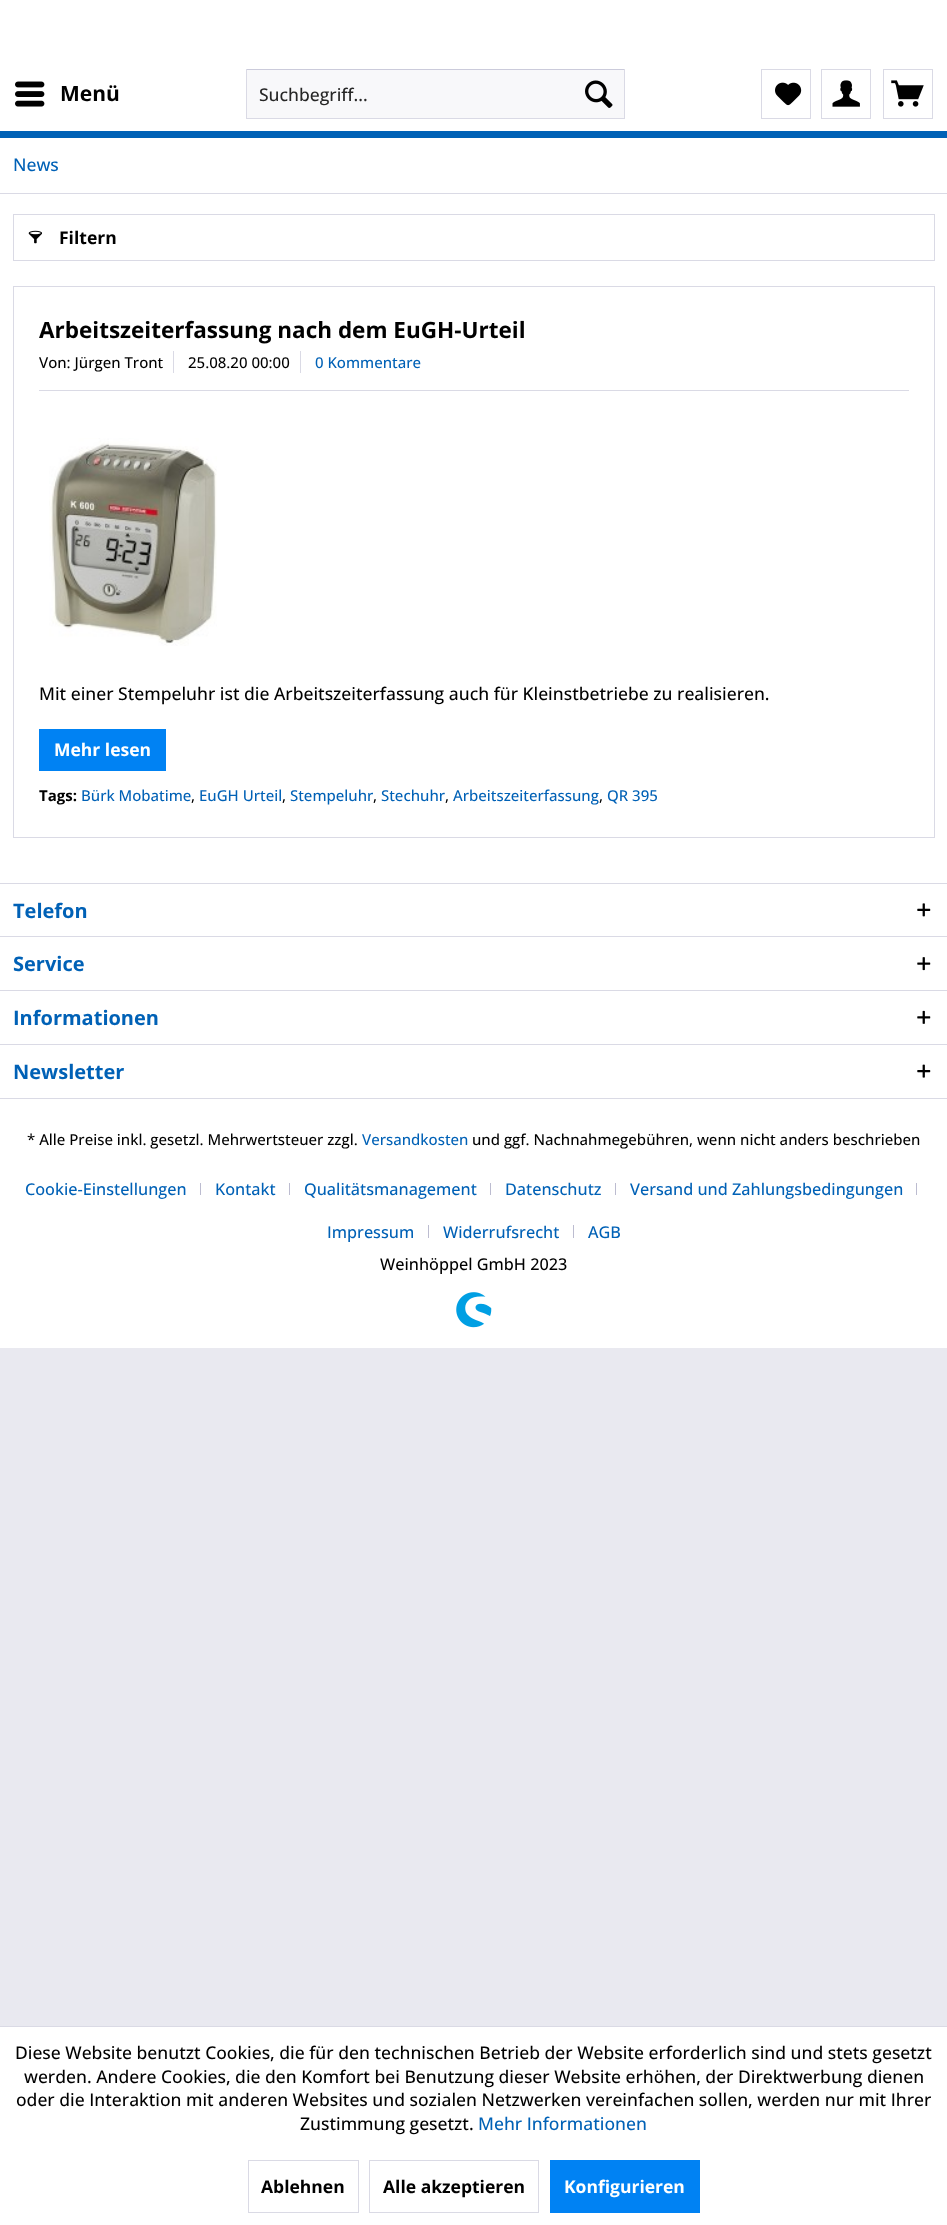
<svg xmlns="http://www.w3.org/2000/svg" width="947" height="2225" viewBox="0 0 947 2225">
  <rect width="100%" height="100%" fill="rgb(233,233,240)"/>
  <rect x="0" y="0" width="947" height="131" fill="rgb(255,255,255)"/>
  <rect x="0" y="131" width="947" height="7" fill="rgb(0,97,182)"/>
  <image x="15" y="81" width="30" height="26" href="pic1.png"/>
  <text x="60" y="101" font-family="Open Sans" font-size="21" font-weight="bold" fill="rgb(0,0,0)">Menü</text>
  <rect x="247" y="70" width="377" height="48" fill="rgb(248,248,250)"/>
  <rect x="246" y="69" width="379" height="1" fill="rgb(203,203,219)"/>
  <rect x="624" y="69" width="1" height="50" fill="rgb(218,218,229)"/>
  <rect x="246" y="118" width="379" height="1" fill="rgb(218,218,229)"/>
  <rect x="246" y="69" width="1" height="50" fill="rgb(218,218,229)"/>
  <text x="259" y="101" font-family="Open Sans" font-size="17.5" font-weight="500" fill="rgb(38,38,38)">Suchbegriff...</text>
  <image x="585" y="80" width="28" height="28" href="pic2.png"/>
  <rect x="761.5" y="69.5" width="49" height="49" fill="none" stroke="rgb(218,218,229)"/>
  <image x="775" y="82" width="27" height="24" href="pic3.png"/>
  <rect x="821.5" y="69.5" width="49" height="49" fill="none" stroke="rgb(218,218,229)"/>
  <image x="832" y="80" width="28" height="27" href="pic4.png"/>
  <rect x="883.5" y="69.5" width="49" height="49" fill="none" stroke="rgb(218,218,229)"/>
  <image x="891" y="80" width="33" height="27" href="pic5.png"/>
  <rect x="0" y="138" width="947" height="745" fill="rgb(255,255,255)"/>
  <rect x="0" y="193" width="947" height="1" fill="rgb(218,218,229)"/>
  <text x="13" y="171" font-family="Open Sans" font-size="17.5" font-weight="500" fill="rgb(0,97,182)">News</text>
  <rect x="13.5" y="214.5" width="921" height="46" fill="none" stroke="rgb(218,218,229)"/>
  <image x="28" y="230" width="14" height="14" href="pic6.png"/>
  <text x="59" y="244" font-family="Open Sans" font-size="17.5" font-weight="bold" fill="rgb(0,0,0)">Filtern</text>
  <rect x="13.5" y="286.5" width="921" height="551" fill="none" stroke="rgb(218,218,229)"/>
  <text x="39" y="338" font-family="Open Sans" font-size="22.5" font-weight="bold" fill="rgb(0,0,0)">Arbeitszeiterfassung nach dem EuGH-Urteil</text>
  <rect x="39" y="390" width="870" height="1" fill="rgb(218,218,229)"/>
  <rect x="173" y="351" width="1" height="22" fill="rgb(218,218,229)"/>
  <text x="39" y="368" font-family="Open Sans" font-size="15" font-weight="500" fill="rgb(0,0,0)">Von: Jürgen Tront</text>
  <rect x="300" y="351" width="1" height="22" fill="rgb(218,218,229)"/>
  <text x="188" y="368" font-family="Open Sans" font-size="15" font-weight="500" fill="rgb(0,0,0)">25.08.20 00:00</text>
  <text x="315" y="368" font-family="Open Sans" font-size="15" font-weight="500" fill="rgb(0,97,182)">0 Kommentare</text>
  <image x="49" y="438" width="168" height="208" href="pic7.png"/>
  <text x="39" y="700" font-family="Open Sans" font-size="17.5" font-weight="500" fill="rgb(0,0,0)">Mit einer Stempeluhr ist die Arbeitszeiterfassung auch für Kleinstbetriebe zu realisieren.</text>
  <rect x="39" y="729" width="127" height="42" fill="rgb(0,130,243)"/>
  <text x="54" y="756" font-family="Open Sans" font-size="17.5" font-weight="bold" fill="rgb(255,255,255)">Mehr lesen</text>
  <text x="39" y="801" font-family="Open Sans" font-size="15" font-weight="bold" fill="rgb(0,0,0)">Tags:</text>
  <text x="81" y="801" font-family="Open Sans" font-size="15" font-weight="500" fill="rgb(0,97,182)">Bürk Mobatime</text>
  <text x="191" y="801" font-family="Open Sans" font-size="15" font-weight="500" fill="rgb(0,0,0)">,</text>
  <text x="199" y="801" font-family="Open Sans" font-size="15" font-weight="500" fill="rgb(0,97,182)">EuGH Urteil</text>
  <text x="282" y="801" font-family="Open Sans" font-size="15" font-weight="500" fill="rgb(0,0,0)">,</text>
  <text x="290" y="801" font-family="Open Sans" font-size="15" font-weight="500" fill="rgb(0,97,182)">Stempeluhr</text>
  <text x="373" y="801" font-family="Open Sans" font-size="15" font-weight="500" fill="rgb(0,0,0)">,</text>
  <text x="381" y="801" font-family="Open Sans" font-size="15" font-weight="500" fill="rgb(0,97,182)">Stechuhr</text>
  <text x="445" y="801" font-family="Open Sans" font-size="15" font-weight="500" fill="rgb(0,0,0)">,</text>
  <text x="453" y="801" font-family="Open Sans" font-size="15" font-weight="500" fill="rgb(0,97,182)">Arbeitszeiterfassung</text>
  <text x="599" y="801" font-family="Open Sans" font-size="15" font-weight="500" fill="rgb(0,0,0)">,</text>
  <text x="607" y="801" font-family="Open Sans" font-size="15" font-weight="500" fill="rgb(0,97,182)">QR 395</text>
  <rect x="0" y="884" width="947" height="464" fill="rgb(255,255,255)"/>
  <rect x="0" y="883" width="947" height="1" fill="rgb(218,218,229)"/>
  <text x="13" y="918" font-family="Open Sans" font-size="20" font-weight="bold" fill="rgb(0,97,182)">Telefon</text>
  <image x="917" y="903" width="14" height="14" href="pic8.png"/>
  <rect x="0" y="936" width="947" height="1" fill="rgb(218,218,229)"/>
  <text x="13" y="971" font-family="Open Sans" font-size="20" font-weight="bold" fill="rgb(0,97,182)">Service</text>
  <image x="917" y="957" width="14" height="14" href="pic9.png"/>
  <rect x="0" y="990" width="947" height="1" fill="rgb(218,218,229)"/>
  <text x="13" y="1025" font-family="Open Sans" font-size="20" font-weight="bold" fill="rgb(0,97,182)">Informationen</text>
  <image x="917" y="1010" width="14" height="14" href="pic10.png"/>
  <rect x="0" y="1044" width="947" height="1" fill="rgb(218,218,229)"/>
  <rect x="0" y="1098" width="947" height="1" fill="rgb(218,218,229)"/>
  <text x="13" y="1079" font-family="Open Sans" font-size="20" font-weight="bold" fill="rgb(0,97,182)">Newsletter</text>
  <image x="917" y="1064" width="14" height="14" href="pic11.png"/>
  <text x="27" y="1145" font-family="Open Sans" font-size="15" font-weight="500" fill="rgb(0,0,0)">* Alle Preise inkl. gesetzl. Mehrwertsteuer zzgl.</text>
  <text x="362" y="1145" font-family="Open Sans" font-size="15" font-weight="500" fill="rgb(0,97,182)">Versandkosten</text>
  <text x="472" y="1145" font-family="Open Sans" font-size="15" font-weight="500" fill="rgb(0,0,0)">und ggf. Nachnahmegebühren, wenn nicht anders beschrieben</text>
  <text x="25" y="1195" font-family="Open Sans" font-size="16.25" font-weight="500" fill="rgb(0,97,182)">Cookie-Einstellungen</text>
  <rect x="200" y="1183" width="1" height="12" fill="rgb(188,188,208)"/>
  <text x="215" y="1195" font-family="Open Sans" font-size="16.25" font-weight="500" fill="rgb(0,97,182)">Kontakt</text>
  <rect x="289" y="1183" width="1" height="12" fill="rgb(188,188,208)"/>
  <text x="304" y="1195" font-family="Open Sans" font-size="16.25" font-weight="500" fill="rgb(0,97,182)">Qualitätsmanagement</text>
  <rect x="490" y="1183" width="1" height="12" fill="rgb(188,188,208)"/>
  <text x="505" y="1195" font-family="Open Sans" font-size="16.25" font-weight="500" fill="rgb(0,97,182)">Datenschutz</text>
  <rect x="615" y="1183" width="1" height="12" fill="rgb(188,188,208)"/>
  <text x="630" y="1195" font-family="Open Sans" font-size="16.25" font-weight="500" fill="rgb(0,97,182)">Versand und Zahlungsbedingungen</text>
  <rect x="916" y="1183" width="1" height="12" fill="rgb(188,188,208)"/>
  <text x="327" y="1238" font-family="Open Sans" font-size="16.25" font-weight="500" fill="rgb(0,97,182)">Impressum</text>
  <rect x="428" y="1225" width="1" height="13" fill="rgb(188,188,208)"/>
  <text x="443" y="1238" font-family="Open Sans" font-size="16.25" font-weight="500" fill="rgb(0,97,182)">Widerrufsrecht</text>
  <rect x="573" y="1225" width="1" height="13" fill="rgb(188,188,208)"/>
  <text x="588" y="1238" font-family="Open Sans" font-size="16.25" font-weight="500" fill="rgb(0,97,182)">AGB</text>
  <text x="380" y="1270" font-family="Open Sans" font-size="16.25" font-weight="500" fill="rgb(0,0,0)">Weinhöppel GmbH 2023</text>
  <image x="456" y="1292" width="36" height="36" href="pic12.png"/>
  <rect x="0" y="2027" width="947" height="198" fill="rgb(255,255,255)"/>
  <rect x="0" y="2026" width="947" height="1" fill="rgb(218,218,229)"/>
  <g font-family="Open Sans" font-size="17.5" font-weight="500" fill="rgb(0,0,0)">
    <text x="15" y="2059">Diese Website benutzt Cookies, die für den technischen Betrieb der Website erforderlich sind und stets gesetzt</text>
    <text x="24" y="2083">werden. Andere Cookies, die den Komfort bei Benutzung dieser Website erhöhen, der Direktwerbung dienen</text>
    <text x="16" y="2106">oder die Interaktion mit anderen Websites und sozialen Netzwerken vereinfachen sollen, werden nur mit Ihrer</text>
    <text x="300" y="2130">Zustimmung gesetzt.</text>
  </g>
  <text x="478" y="2130" font-family="Open Sans" font-size="17.5" font-weight="500" fill="rgb(0,97,182)">Mehr Informationen</text>
  <rect x="248.5" y="2160.5" width="110" height="52" fill="none" stroke="rgb(218,218,229)"/>
  <text x="261" y="2193" font-family="Open Sans" font-size="17.5" font-weight="bold" fill="rgb(0,0,0)">Ablehnen</text>
  <rect x="369.5" y="2160.5" width="169" height="52" fill="none" stroke="rgb(218,218,229)"/>
  <text x="383" y="2193" font-family="Open Sans" font-size="17.5" font-weight="bold" fill="rgb(0,0,0)">Alle akzeptieren</text>
  <rect x="550" y="2160" width="150" height="53" fill="rgb(0,130,243)"/>
  <text x="564" y="2193" font-family="Open Sans" font-size="17.5" font-weight="bold" fill="rgb(255,255,255)">Konfigurieren</text>
</svg>
